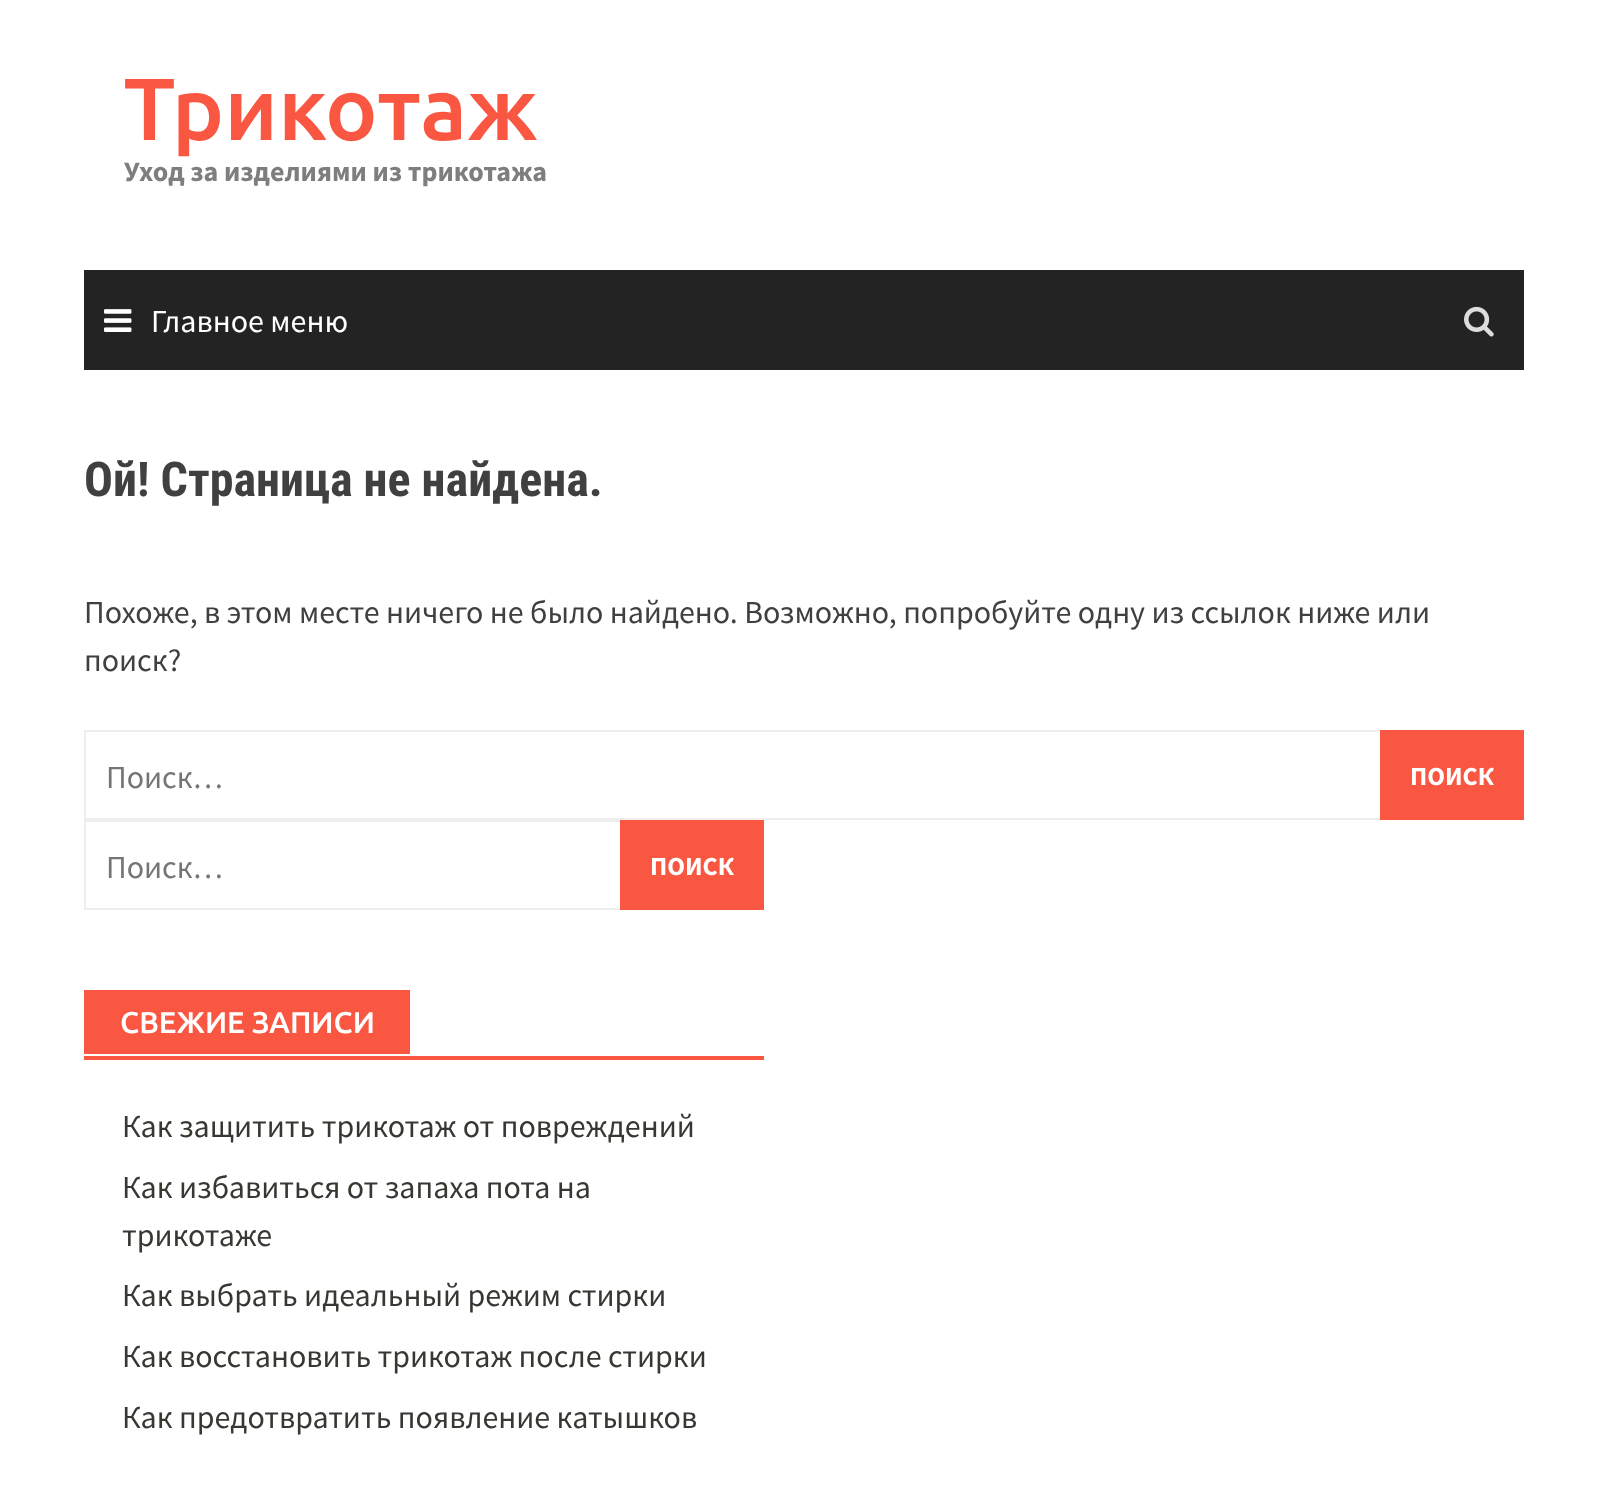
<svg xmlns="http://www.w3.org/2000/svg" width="1608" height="1497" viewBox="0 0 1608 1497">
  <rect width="100%" height="100%" fill="rgb(255,255,255)"/>
  <text x="124" y="140" font-family="Ubuntu" font-size="88" font-weight="500" fill="rgb(250,87,66)">Трикотаж</text>
  <text x="124" y="181" font-family="Source Sans Pro" font-size="28" font-weight="bold" fill="rgb(126,126,126)">Уход за изделиями из трикотажа</text>
  <rect x="84" y="270" width="1440" height="100" fill="rgb(35,35,35)"/>
  <image x="104" y="309" width="28" height="23" href="pic1.png"/>
  <text x="151" y="332" font-family="Source Sans Pro" font-size="32" fill="rgb(255,255,255)">Главное меню</text>
  <image x="1464" y="306" width="30" height="31" href="pic2.png"/>
  <text x="84" y="496" font-family="Roboto Condensed" font-size="48" font-weight="bold" fill="rgb(64,64,64)">Ой! Страница не найдена.</text>
  <g font-family="Source Sans Pro" font-size="32" fill="rgb(64,64,64)">
    <text>
      <tspan x="84" y="623">Похоже, в этом месте ничего не было найдено. Возможно, попробуйте одну из ссылок ниже или</tspan>
      <tspan x="84" y="671">поиск?</tspan>
    </text>
  </g>
  <rect x="85" y="731" width="1438" height="88" fill="none" stroke="rgb(238,238,238)" stroke-width="2"/>
  <text x="106" y="788" font-family="Source Sans Pro" font-size="32" fill="rgb(117,117,117)">Поиск…</text>
  <rect x="1380" y="730" width="144" height="90" fill="rgb(250,87,66)"/>
  <text x="1410" y="785" font-family="Source Sans Pro" font-size="26" font-weight="bold" fill="rgb(255,255,255)">ПОИСК</text>
  <rect x="85" y="821" width="678" height="88" fill="none" stroke="rgb(238,238,238)" stroke-width="2"/>
  <text x="106" y="878" font-family="Source Sans Pro" font-size="32" fill="rgb(117,117,117)">Поиск…</text>
  <rect x="620" y="820" width="144" height="90" fill="rgb(250,87,66)"/>
  <text x="650" y="875" font-family="Source Sans Pro" font-size="26" font-weight="bold" fill="rgb(255,255,255)">ПОИСК</text>
  <rect x="84" y="1056" width="680" height="4" fill="rgb(250,87,66)"/>
  <rect x="84" y="990" width="326" height="64" fill="rgb(250,87,66)"/>
  <text x="120" y="1033" font-family="Ubuntu" font-size="30" font-weight="500" fill="rgb(255,255,255)">СВЕЖИЕ ЗАПИСИ</text>
  <g font-family="Source Sans Pro" font-size="32" fill="rgb(56,55,50)">
    <text>
      <tspan x="122" y="1137">Как защитить трикотаж от повреждений</tspan>
      <tspan x="122" y="1198">Как избавиться от запаха пота на</tspan>
      <tspan x="122" y="1246">трикотаже</tspan>
      <tspan x="122" y="1306">Как выбрать идеальный режим стирки</tspan>
      <tspan x="122" y="1367">Как восстановить трикотаж после стирки</tspan>
      <tspan x="122" y="1428">Как предотвратить появление катышков</tspan>
    </text>
  </g>
</svg>
